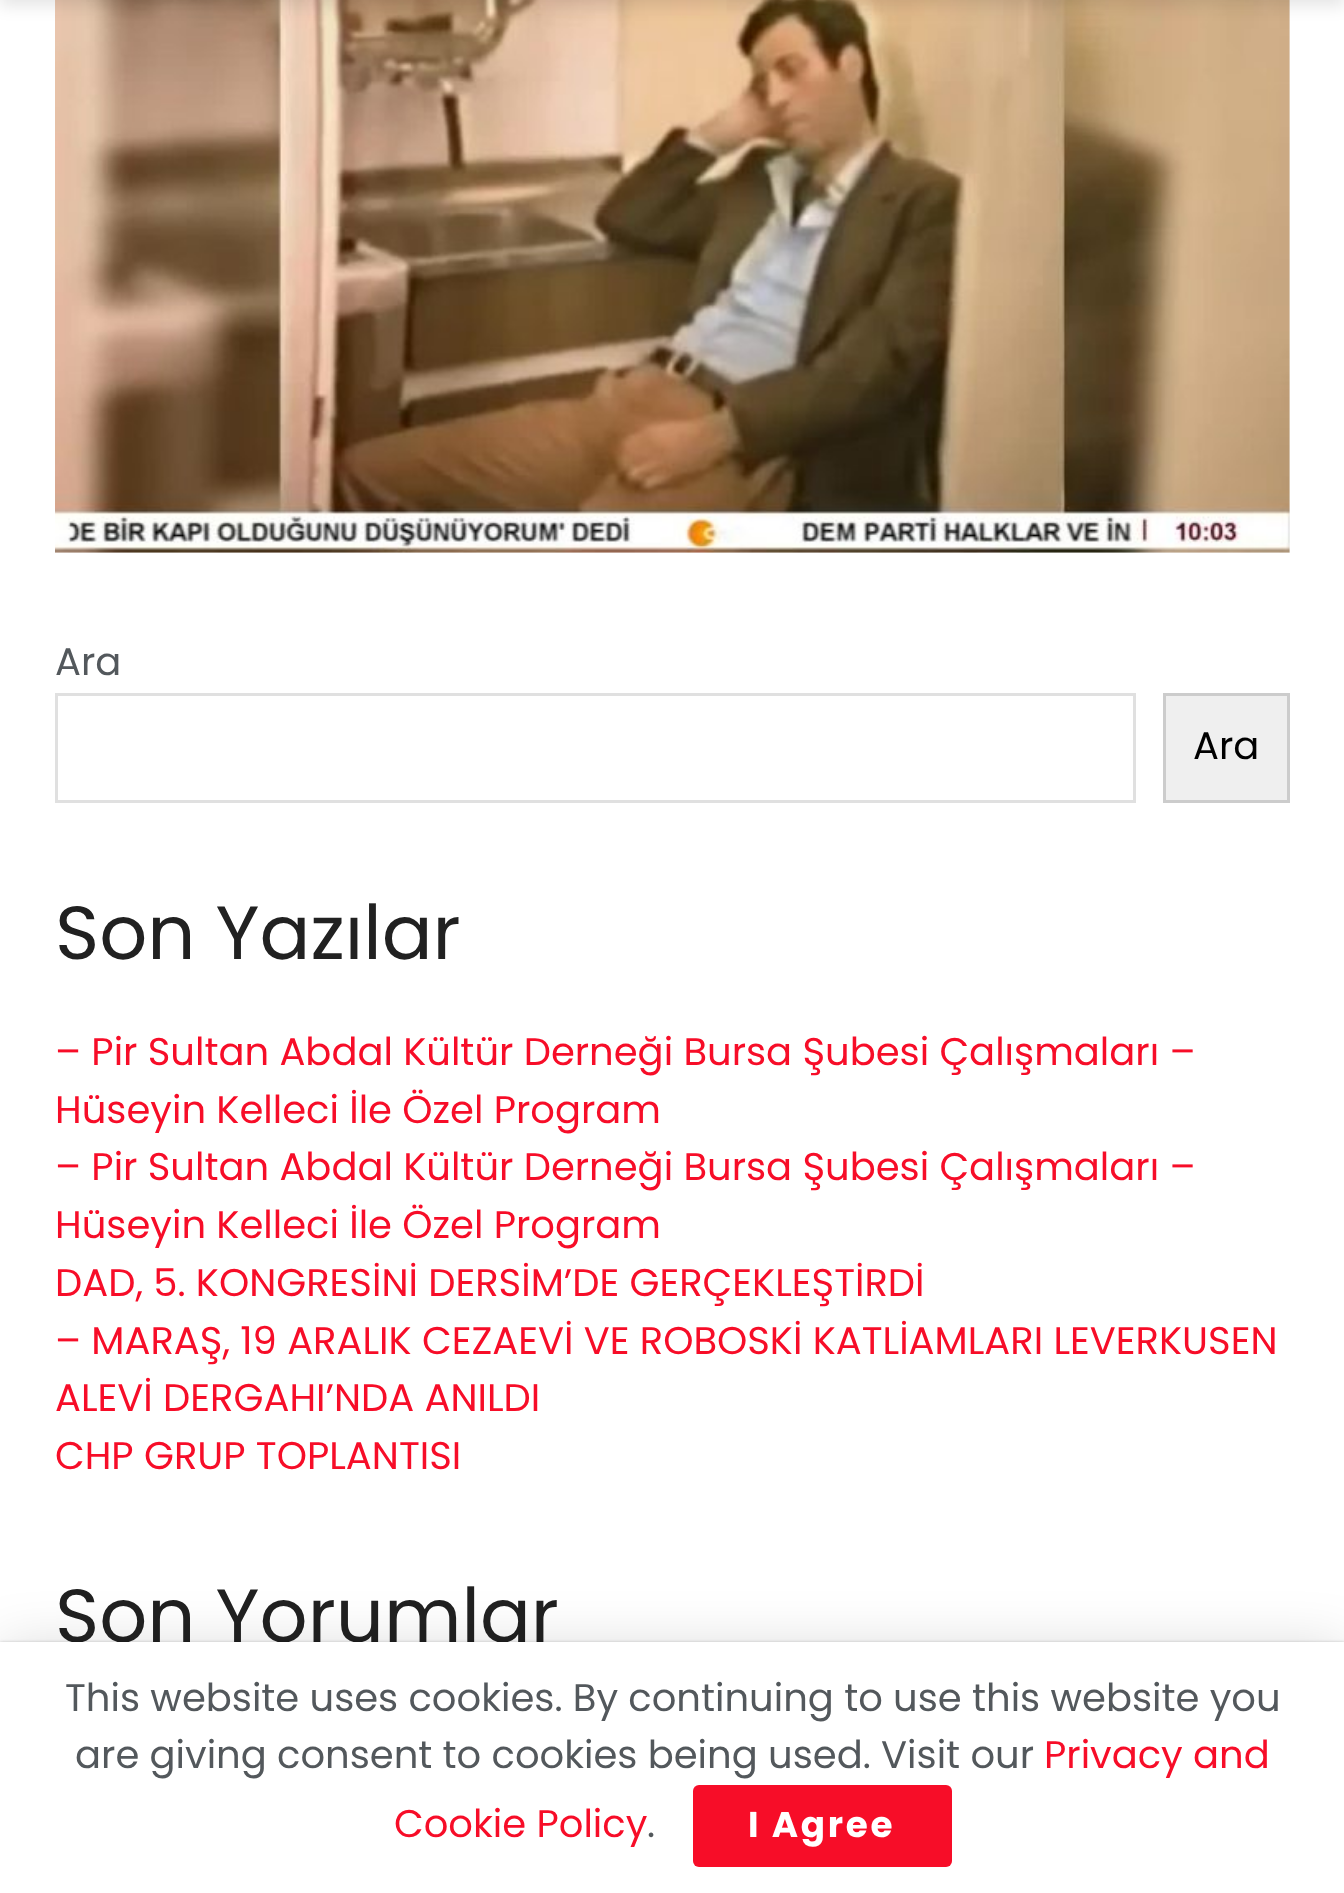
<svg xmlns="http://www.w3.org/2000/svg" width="1344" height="1893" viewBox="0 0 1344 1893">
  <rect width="100%" height="100%" fill="rgb(255,255,255)"/>
  <rect x="55" y="0" width="1235" height="553" fill="rgb(247,247,247)"/>
  <image x="55" y="0" width="1235" height="553" href="pic1.png"/>
  <rect x="0" y="-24" width="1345" height="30" fill="rgba(0,0,0,0.1)" filter="blur(8px)"/>
  <text x="55" y="675" font-family="Poppins" font-size="38.5" fill="rgb(83,88,92)">Ara</text>
  <rect x="56.5" y="694.5" width="1078" height="107" fill="none" stroke="rgb(224,224,224)" stroke-width="3"/>
  <rect x="1164.5" y="694.5" width="124" height="107" fill="rgb(239,239,239)" stroke="rgb(204,204,204)" stroke-width="3"/>
  <text x="1193" y="759" font-family="Poppins" font-size="38.5" fill="rgb(0,0,0)">Ara</text>
  <text x="55" y="959" font-family="Poppins" font-size="75.25" fill="rgb(33,33,33)">Son Yazılar</text>
  <g font-family="Poppins" font-size="38.5" fill="rgb(247,13,40)">
    <text>
      <tspan x="55" y="1065">– Pir Sultan Abdal Kültür Derneği Bursa Şubesi Çalışmaları –</tspan>
      <tspan x="55" y="1123">Hüseyin Kelleci İle Özel Program</tspan>
      <tspan x="55" y="1180">– Pir Sultan Abdal Kültür Derneği Bursa Şubesi Çalışmaları –</tspan>
      <tspan x="55" y="1238">Hüseyin Kelleci İle Özel Program</tspan>
      <tspan x="55" y="1296">DAD, 5. KONGRESİNİ DERSİM’DE GERÇEKLEŞTİRDİ</tspan>
      <tspan x="55" y="1354">– MARAŞ, 19 ARALIK CEZAEVİ VE ROBOSKİ KATLİAMLARI LEVERKUSEN</tspan>
      <tspan x="55" y="1411">ALEVİ DERGAHI’NDA ANILDI</tspan>
      <tspan x="55" y="1469">CHP GRUP TOPLANTISI</tspan>
    </text>
  </g>
  <text x="55" y="1642" font-family="Poppins" font-size="75.25" fill="rgb(33,33,33)">Son Yorumlar</text>
  <rect x="0" y="1647" width="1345" height="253" fill="rgba(0,0,0,0.15)" filter="blur(27.5px)"/>
  <rect x="0" y="1642" width="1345" height="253" fill="rgba(0,0,0,0.2)" filter="blur(1.5px)"/>
  <rect x="0" y="1642" width="1344" height="251" fill="rgb(255,255,255)"/>
  <g font-family="Poppins" font-size="38.5" fill="rgb(83,88,92)">
    <text x="65" y="1711">This website uses cookies. By continuing to use this website you</text>
    <text x="75" y="1768">are giving consent to cookies being used. Visit our</text>
  </g>
  <g font-family="Poppins" font-size="38.5" fill="rgb(247,13,40)">
    <text x="1044" y="1768">Privacy and</text>
    <text x="394" y="1837">Cookie Policy</text>
  </g>
  <text x="647" y="1837" font-family="Poppins" font-size="38.5" fill="rgb(83,88,92)">.</text>
  <rect x="693" y="1785" width="259" height="82" rx="6" fill="rgb(247,13,40)"/>
  <text x="748" y="1837" font-family="Poppins" font-size="35.75" font-weight="bold" letter-spacing="2.75" fill="rgb(255,255,255)">I Agree</text>
</svg>
